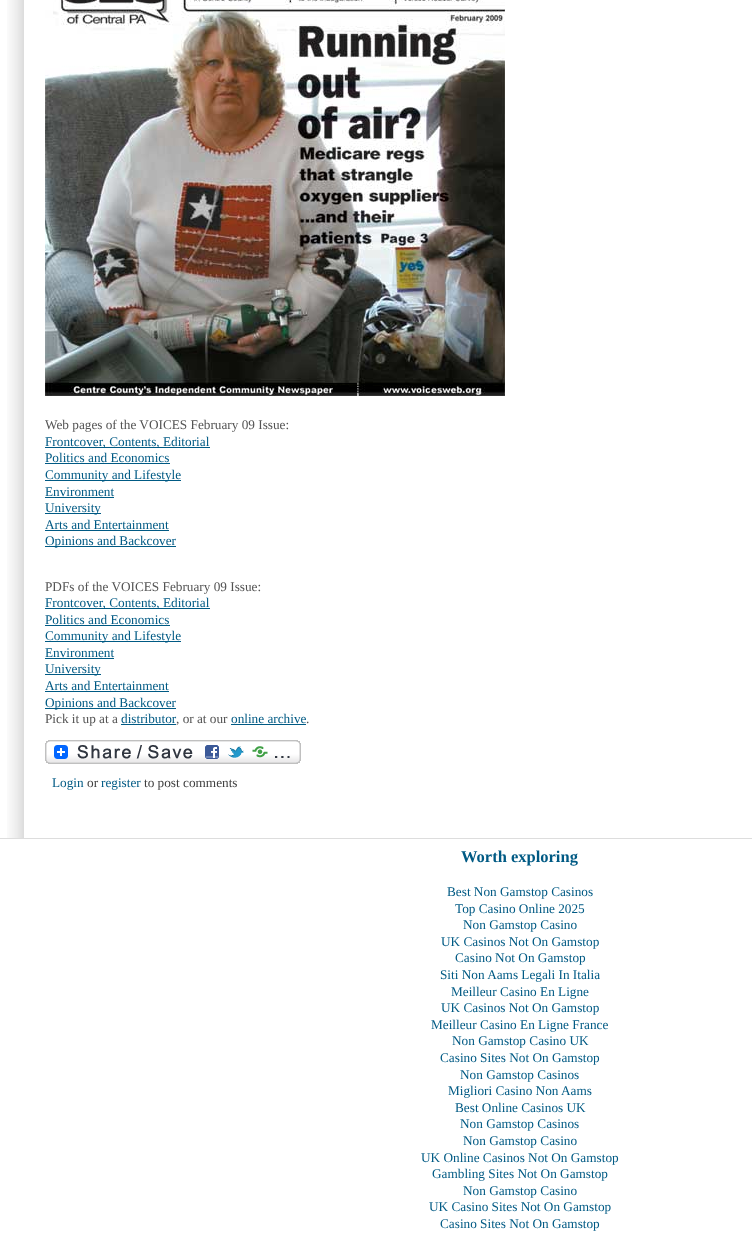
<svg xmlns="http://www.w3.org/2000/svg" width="752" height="1250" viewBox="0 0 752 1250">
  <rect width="100%" height="100%" fill="rgb(255,255,255)"/>
  <rect x="0" y="838" width="752" height="1" fill="rgb(221,221,221)"/>
  <image x="7" y="0" width="17" height="838" href="pic1.png"/>
  <image x="45" y="0" width="460" height="396" href="pic2.png"/>
  <text x="45" y="429" font-family="Liberation Serif" font-size="13.25" fill="rgb(83,83,83)">Web pages of the VOICES February 09 Issue:</text>
  <rect x="45" y="447" width="165" height="1" fill="rgb(0,90,132)"/>
  <g font-family="Liberation Serif" font-size="13.25" fill="rgb(0,90,132)">
    <text>
      <tspan x="45" y="446">Frontcover, Contents, Editorial</tspan>
      <tspan x="45" y="462">Politics and Economics</tspan>
    </text>
  </g>
  <rect x="45" y="463" width="125" height="1" fill="rgb(0,90,132)"/>
  <rect x="45" y="480" width="136" height="1" fill="rgb(0,90,132)"/>
  <g font-family="Liberation Serif" font-size="13.25" fill="rgb(0,90,132)">
    <text>
      <tspan x="45" y="479">Community and Lifestyle</tspan>
      <tspan x="45" y="496">Environment</tspan>
    </text>
  </g>
  <rect x="45" y="497" width="69" height="1" fill="rgb(0,90,132)"/>
  <rect x="45" y="513" width="56" height="1" fill="rgb(0,90,132)"/>
  <g font-family="Liberation Serif" font-size="13.25" fill="rgb(0,90,132)">
    <text>
      <tspan x="45" y="512">University</tspan>
      <tspan x="45" y="529">Arts and Entertainment</tspan>
    </text>
  </g>
  <rect x="45" y="530" width="124" height="1" fill="rgb(0,90,132)"/>
  <rect x="45" y="546" width="131" height="1" fill="rgb(0,90,132)"/>
  <text x="45" y="545" font-family="Liberation Serif" font-size="13.25" fill="rgb(0,90,132)">Opinions and Backcover</text>
  <text x="45" y="591" font-family="Liberation Serif" font-size="13.25" fill="rgb(83,83,83)">PDFs of the VOICES February 09 Issue:</text>
  <rect x="45" y="608" width="165" height="1" fill="rgb(0,90,132)"/>
  <g font-family="Liberation Serif" font-size="13.25" fill="rgb(0,90,132)">
    <text>
      <tspan x="45" y="607">Frontcover, Contents, Editorial</tspan>
      <tspan x="45" y="624">Politics and Economics</tspan>
    </text>
  </g>
  <rect x="45" y="625" width="125" height="1" fill="rgb(0,90,132)"/>
  <rect x="45" y="641" width="136" height="1" fill="rgb(0,90,132)"/>
  <g font-family="Liberation Serif" font-size="13.25" fill="rgb(0,90,132)">
    <text>
      <tspan x="45" y="640">Community and Lifestyle</tspan>
      <tspan x="45" y="657">Environment</tspan>
    </text>
  </g>
  <rect x="45" y="658" width="69" height="1" fill="rgb(0,90,132)"/>
  <rect x="45" y="674" width="56" height="1" fill="rgb(0,90,132)"/>
  <g font-family="Liberation Serif" font-size="13.25" fill="rgb(0,90,132)">
    <text>
      <tspan x="45" y="673">University</tspan>
      <tspan x="45" y="690">Arts and Entertainment</tspan>
    </text>
  </g>
  <rect x="45" y="691" width="124" height="1" fill="rgb(0,90,132)"/>
  <rect x="45" y="708" width="131" height="1" fill="rgb(0,90,132)"/>
  <text x="45" y="707" font-family="Liberation Serif" font-size="13.25" fill="rgb(0,90,132)">Opinions and Backcover</text>
  <text x="45" y="723" font-family="Liberation Serif" font-size="13.25" fill="rgb(83,83,83)">Pick it up at a</text>
  <text x="121" y="723" font-family="Liberation Serif" font-size="13.25" fill="rgb(0,90,132)">distributor</text>
  <rect x="121" y="724" width="55" height="1" fill="rgb(0,90,132)"/>
  <text x="176" y="723" font-family="Liberation Serif" font-size="13.25" fill="rgb(83,83,83)">, or at our</text>
  <text x="231" y="723" font-family="Liberation Serif" font-size="13.25" fill="rgb(0,90,132)">online archive</text>
  <rect x="231" y="724" width="75" height="1" fill="rgb(0,90,132)"/>
  <text x="306" y="723" font-family="Liberation Serif" font-size="13.25" fill="rgb(83,83,83)">.</text>
  <image x="45" y="740" width="256" height="24" href="pic3.png"/>
  <text x="52" y="787" font-family="Liberation Serif" font-size="13.25" fill="rgb(0,90,132)">Login</text>
  <text x="87" y="787" font-family="Liberation Serif" font-size="13.25" fill="rgb(63,63,63)">or</text>
  <text x="101" y="787" font-family="Liberation Serif" font-size="13.25" fill="rgb(0,90,132)">register</text>
  <text x="144" y="787" font-family="Liberation Serif" font-size="13.25" fill="rgb(63,63,63)">to post comments</text>
  <text x="461" y="862" font-family="Liberation Serif" font-size="16.5" font-weight="bold" fill="rgb(0,90,132)">Worth exploring</text>
  <g font-family="Liberation Serif" font-size="13.25" fill="rgb(0,90,132)">
    <text x="447" y="896">Best Non Gamstop Casinos</text>
    <text x="455" y="913">Top Casino Online 2025</text>
    <text x="463" y="929">Non Gamstop Casino</text>
    <text x="441" y="946">UK Casinos Not On Gamstop</text>
    <text x="455" y="962">Casino Not On Gamstop</text>
    <text x="440" y="979">Siti Non Aams Legali In Italia</text>
    <text x="451" y="996">Meilleur Casino En Ligne</text>
    <text x="441" y="1012">UK Casinos Not On Gamstop</text>
    <text x="431" y="1029">Meilleur Casino En Ligne France</text>
    <text x="452" y="1045">Non Gamstop Casino UK</text>
    <text x="440" y="1062">Casino Sites Not On Gamstop</text>
    <text x="460" y="1079">Non Gamstop Casinos</text>
    <text x="448" y="1095">Migliori Casino Non Aams</text>
    <text x="455" y="1112">Best Online Casinos UK</text>
    <text x="460" y="1128">Non Gamstop Casinos</text>
    <text x="463" y="1145">Non Gamstop Casino</text>
    <text x="421" y="1162">UK Online Casinos Not On Gamstop</text>
    <text x="432" y="1178">Gambling Sites Not On Gamstop</text>
    <text x="463" y="1195">Non Gamstop Casino</text>
    <text x="429" y="1211">UK Casino Sites Not On Gamstop</text>
    <text x="440" y="1228">Casino Sites Not On Gamstop</text>
  </g>
</svg>
